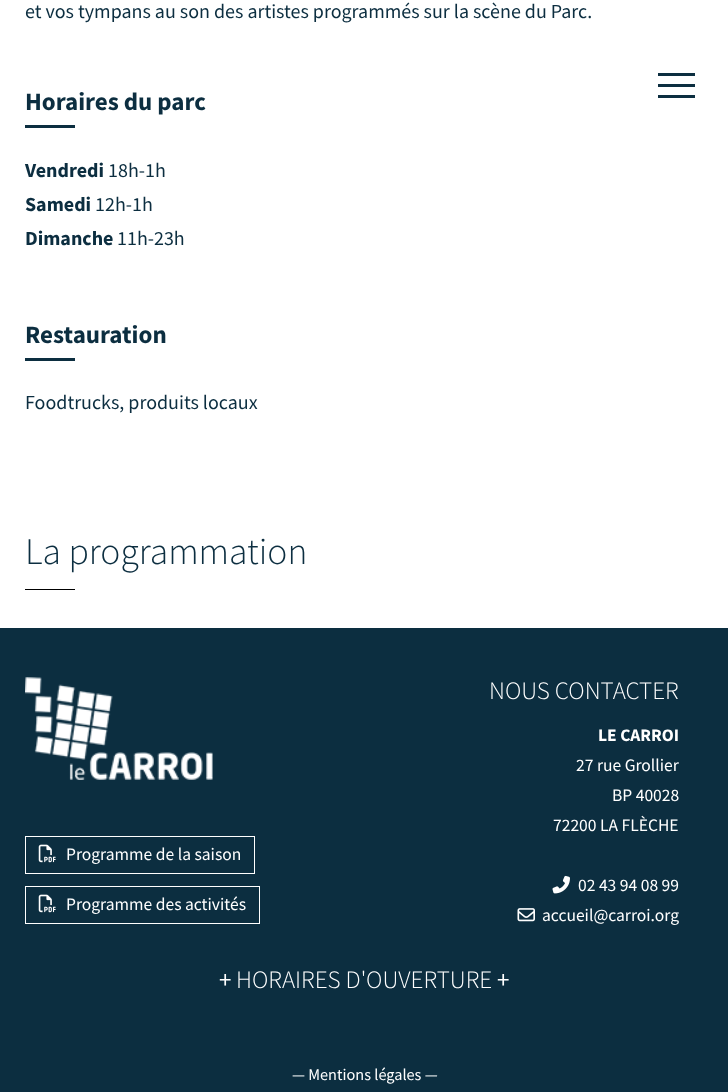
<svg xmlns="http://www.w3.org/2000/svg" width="728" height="1092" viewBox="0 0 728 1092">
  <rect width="100%" height="100%" fill="rgb(255,255,255)"/>
  <text x="25" y="18" font-family="Source Sans Pro" font-size="20" fill="rgb(12,46,64)">et vos tympans au son des artistes programmés sur la scène du Parc.</text>
  <text x="25" y="110" font-family="Source Sans Pro" font-size="25" font-weight="bold" fill="rgb(12,46,64)">Horaires du parc</text>
  <rect x="25" y="125" width="50" height="3" fill="rgb(12,46,64)"/>
  <text x="25" y="177" font-family="Source Sans Pro" font-size="20" font-weight="bold" fill="rgb(12,46,64)">Vendredi</text>
  <text x="108" y="177" font-family="Source Sans Pro" font-size="20" fill="rgb(12,46,64)">18h-1h</text>
  <text x="25" y="211" font-family="Source Sans Pro" font-size="20" font-weight="bold" fill="rgb(12,46,64)">Samedi</text>
  <text x="95" y="211" font-family="Source Sans Pro" font-size="20" fill="rgb(12,46,64)">12h-1h</text>
  <text x="25" y="245" font-family="Source Sans Pro" font-size="20" font-weight="bold" fill="rgb(12,46,64)">Dimanche</text>
  <text x="117" y="245" font-family="Source Sans Pro" font-size="20" fill="rgb(12,46,64)">11h-23h</text>
  <text x="25" y="343" font-family="Source Sans Pro" font-size="25" font-weight="bold" fill="rgb(12,46,64)">Restauration</text>
  <rect x="25" y="358" width="50" height="3" fill="rgb(12,46,64)"/>
  <text x="25" y="409" font-family="Source Sans Pro" font-size="20" fill="rgb(12,46,64)">Foodtrucks, produits locaux</text>
  <text x="25" y="564" font-family="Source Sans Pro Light" font-size="37.5" font-weight="300" fill="rgb(12,46,64)">La programmation</text>
  <rect x="25" y="589" width="50" height="1" fill="rgb(0,0,0)"/>
  <rect x="658" y="73" width="37" height="3" fill="rgb(12,46,64)"/>
  <rect x="658" y="84" width="37" height="3" fill="rgb(12,46,64)"/>
  <rect x="658" y="95" width="37" height="3" fill="rgb(12,46,64)"/>
  <rect x="0" y="628" width="728" height="464" fill="rgb(12,46,64)"/>
  <image x="25" y="677" width="188" height="103" href="pic1.png"/>
  <rect x="25.5" y="836.5" width="229" height="37" fill="none" stroke="rgb(255,255,255)"/>
  <image x="38" y="844" width="18" height="19" href="pic2.png"/>
  <text x="66" y="860" font-family="Source Sans Pro" font-size="17.5" fill="rgb(255,255,255)">Programme de la saison</text>
  <rect x="25.5" y="886.5" width="234" height="37" fill="none" stroke="rgb(255,255,255)"/>
  <image x="38" y="894" width="18" height="19" href="pic2.png"/>
  <text x="66" y="910" font-family="Source Sans Pro" font-size="17.5" fill="rgb(255,255,255)">Programme des activités</text>
  <text x="489" y="699" font-family="Source Sans Pro Light" font-size="25" font-weight="300" fill="rgb(255,255,255)">NOUS CONTACTER</text>
  <text x="598" y="741" font-family="Source Sans Pro" font-size="17.5" font-weight="bold" fill="rgb(255,255,255)">LE CARROI</text>
  <g font-family="Source Sans Pro" font-size="17.5" fill="rgb(255,255,255)">
    <text x="576" y="771">27 rue Grollier</text>
    <text x="612" y="801">BP 40028</text>
    <text x="553" y="831">72200 LA FLÈCHE</text>
  </g>
  <image x="552" y="875" width="18" height="19" href="pic3.png"/>
  <text x="578" y="891" font-family="Source Sans Pro" font-size="17.5" fill="rgb(255,255,255)">02 43 94 08 99</text>
  <image x="517" y="908" width="18" height="14" href="pic4.png"/>
  <text x="542" y="921" font-family="Source Sans Pro" font-size="17.5" fill="rgb(255,255,255)">accueil@carroi.org</text>
  <text x="219" y="988" font-family="Source Sans Pro" font-size="25" fill="rgb(255,255,255)">+</text>
  <text x="236" y="988" font-family="Source Sans Pro Light" font-size="25" font-weight="300" fill="rgb(255,255,255)">HORAIRES D'OUVERTURE</text>
  <text x="497" y="988" font-family="Source Sans Pro" font-size="25" fill="rgb(255,255,255)">+</text>
  <text x="292" y="1080" font-family="Source Sans Pro" font-size="16.25" fill="rgb(255,255,255)">— Mentions légales —</text>
</svg>
